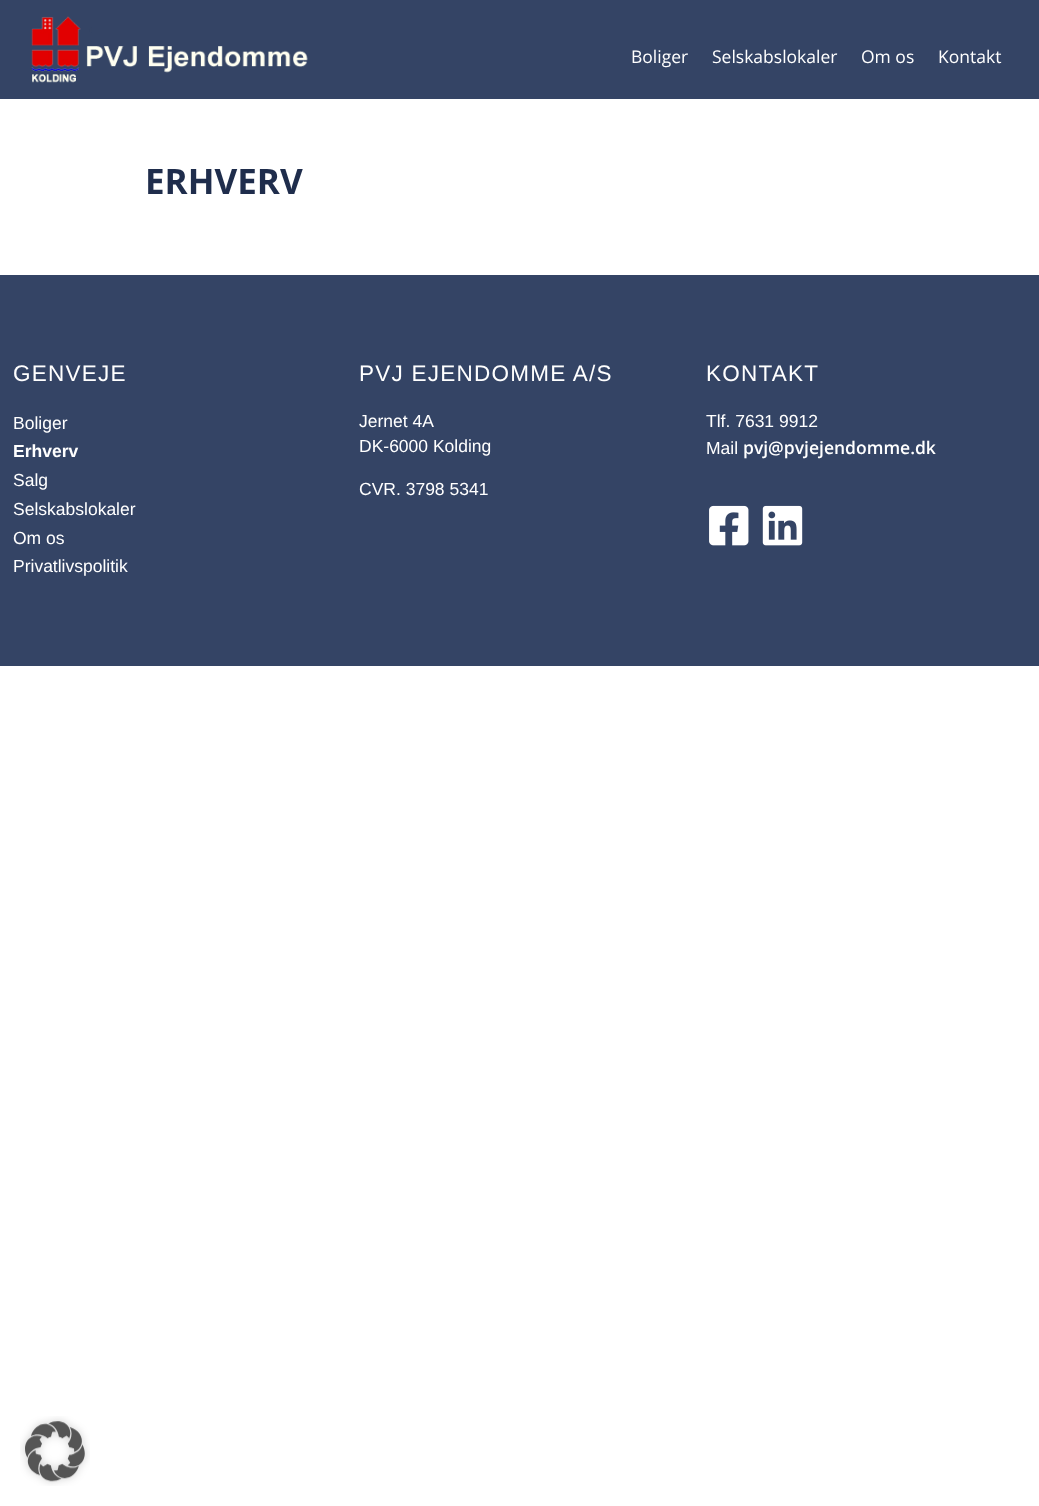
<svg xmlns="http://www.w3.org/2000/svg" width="1039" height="1506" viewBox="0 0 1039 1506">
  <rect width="100%" height="100%" fill="rgb(255,255,255)"/>
  <rect x="0" y="0" width="1039" height="99" fill="rgb(52,68,101)"/>
  <image x="31" y="16" width="277" height="67" href="pic1.png"/>
  <g font-family="Open Sans" font-size="17.5" fill="rgb(255,255,255)">
    <text x="631" y="63">Boliger</text>
    <text x="712" y="63">Selskabslokaler</text>
    <text x="861" y="63">Om os</text>
    <text x="938" y="63">Kontakt</text>
  </g>
  <text x="145" y="194" font-family="Open Sans" font-size="35" font-weight="bold" fill="rgb(31,45,76)">ERHVERV</text>
  <rect x="0" y="275" width="1039" height="391" fill="rgb(52,68,101)"/>
  <text x="13" y="381" font-family="Liberation Sans" font-size="22.5" letter-spacing="1.25" fill="rgb(255,255,255)">GENVEJE</text>
  <text x="13" y="429" font-family="Liberation Sans" font-size="17.5" fill="rgb(255,255,255)">Boliger</text>
  <text x="13" y="457" font-family="Liberation Sans" font-size="17.5" font-weight="bold" fill="rgb(255,255,255)">Erhverv</text>
  <g font-family="Liberation Sans" font-size="17.5" fill="rgb(255,255,255)">
    <text>
      <tspan x="13" y="486">Salg</tspan>
      <tspan x="13" y="515">Selskabslokaler</tspan>
      <tspan x="13" y="544">Om os</tspan>
      <tspan x="13" y="572">Privatlivspolitik</tspan>
    </text>
  </g>
  <text x="359" y="381" font-family="Liberation Sans" font-size="22.5" letter-spacing="1.25" fill="rgb(255,255,255)">PVJ EJENDOMME A/S</text>
  <g font-family="Liberation Sans" font-size="17.5" fill="rgb(255,255,255)">
    <text>
      <tspan x="359" y="427">Jernet 4A</tspan>
      <tspan x="359" y="452">DK-6000 Kolding</tspan>
    </text>
    <text x="359" y="495">CVR. 3798 5341</text>
  </g>
  <text x="706" y="381" font-family="Liberation Sans" font-size="22.5" letter-spacing="1.25" fill="rgb(255,255,255)">KONTAKT</text>
  <g font-family="Liberation Sans" font-size="17.5" fill="rgb(255,255,255)">
    <text>
      <tspan x="706" y="427">Tlf. 7631 9912</tspan>
      <tspan x="706" y="454">Mail</tspan>
    </text>
  </g>
  <text x="743" y="454" font-family="Open Sans" font-size="17.5" font-weight="600" fill="rgb(255,255,255)">pvj@pvjejendomme.dk</text>
  <image x="709" y="505" width="40" height="41" href="pic2.png"/>
  <image x="762" y="505" width="41" height="41" href="pic3.png"/>
  <image x="20" y="1416" width="70" height="70" href="pic4.png"/>
</svg>
